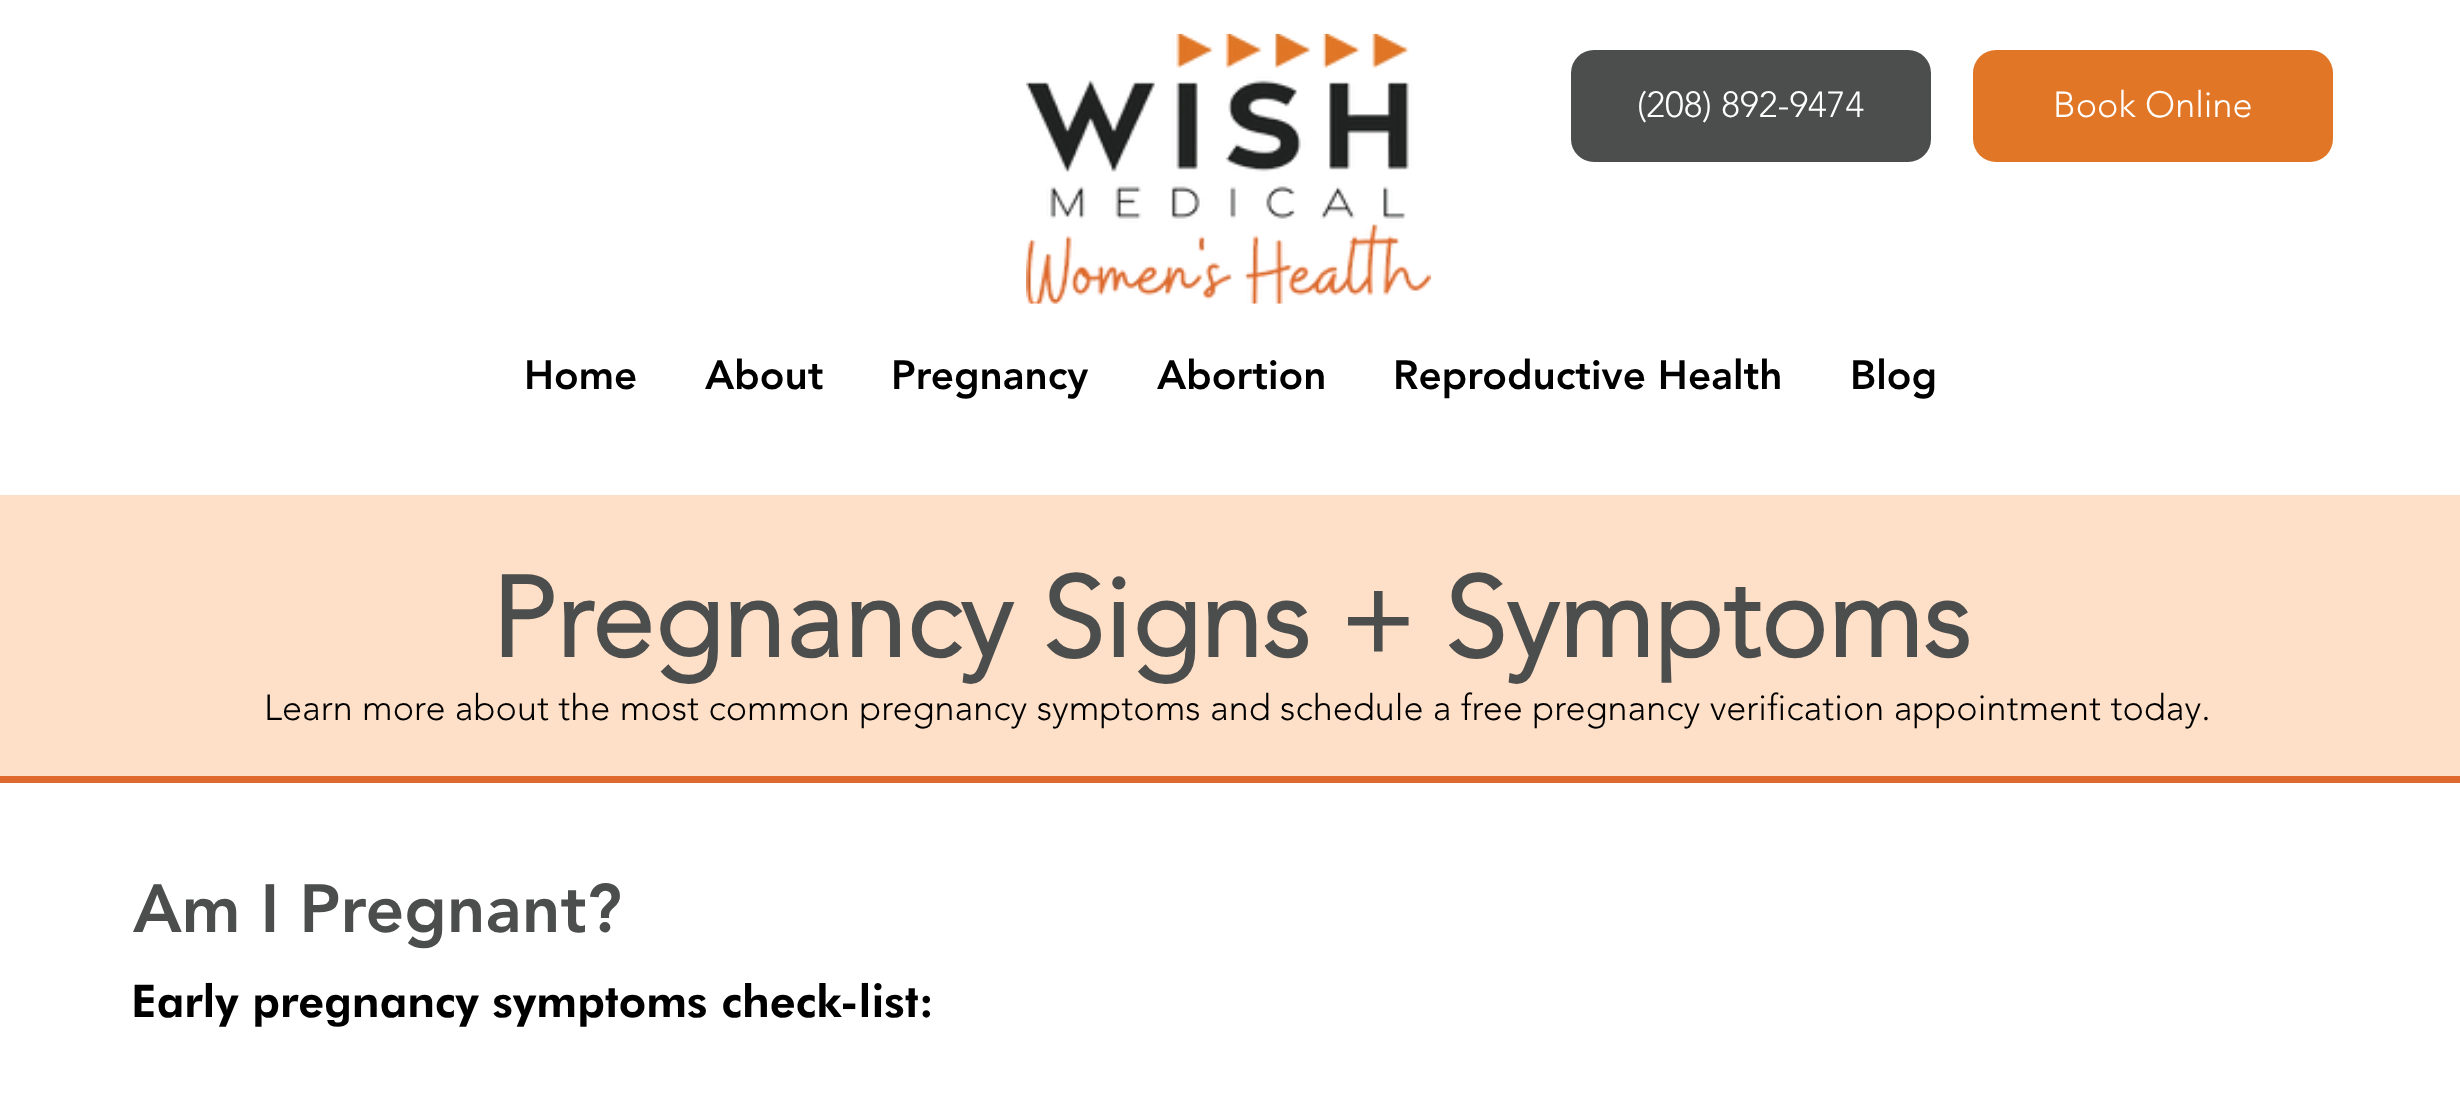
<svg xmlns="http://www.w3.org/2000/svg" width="2460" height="1119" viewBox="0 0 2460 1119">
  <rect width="100%" height="100%" fill="rgb(255,255,255)"/>
  <image x="1026" y="33" width="405" height="271" href="pic1.png"/>
  <rect x="1572" y="51" width="358" height="110" rx="22" fill="rgb(76,78,77)" stroke="rgb(76,78,77)" stroke-width="2"/>
  <text x="1637" y="117" font-family="'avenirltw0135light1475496'" font-size="36" font-weight="300" fill="rgb(255,255,255)">(208) 892-9474</text>
  <rect x="1973" y="50" width="360" height="112" rx="23" fill="rgb(225,118,38)"/>
  <text x="2053" y="117" font-family="'avenirltw0135light1475496'" font-size="36" font-weight="300" fill="rgb(255,255,255)">Book Online</text>
  <g font-family="'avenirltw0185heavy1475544'" font-size="40.5" font-weight="900" fill="rgb(0,0,0)">
    <text x="524" y="389">Home</text>
    <text x="705" y="389">About</text>
    <text x="891" y="389">Pregnancy</text>
    <text x="1157" y="389">Abortion</text>
    <text x="1393" y="389">Reproductive Health</text>
    <text x="1850" y="389">Blog</text>
  </g>
  <rect x="0" y="495" width="2460" height="281" fill="rgb(254,223,199)"/>
  <text x="491" y="657" font-family="'avenirltw0135light1475496'" font-size="112.5" font-weight="bold" fill="rgb(76,78,77)">Pregnancy Signs + Symptoms</text>
  <text x="264" y="720" font-family="'avenirltw0135light1475496'" font-size="36" font-weight="300" fill="rgb(0,0,0)">Learn more about the most common pregnancy symptoms and schedule a free pregnancy verification appointment today.</text>
  <rect x="0" y="776" width="2460" height="7" fill="rgb(223,106,46)"/>
  <text x="133" y="932" font-family="'avenirltw0185heavy1475544'" font-size="67.5" font-weight="900" fill="rgb(76,78,77)">Am I Pregnant?</text>
  <text x="131" y="1017" font-family="Futura" font-size="45" font-weight="900" fill="rgb(0,0,0)">Early pregnancy symptoms check-list:</text>
</svg>
